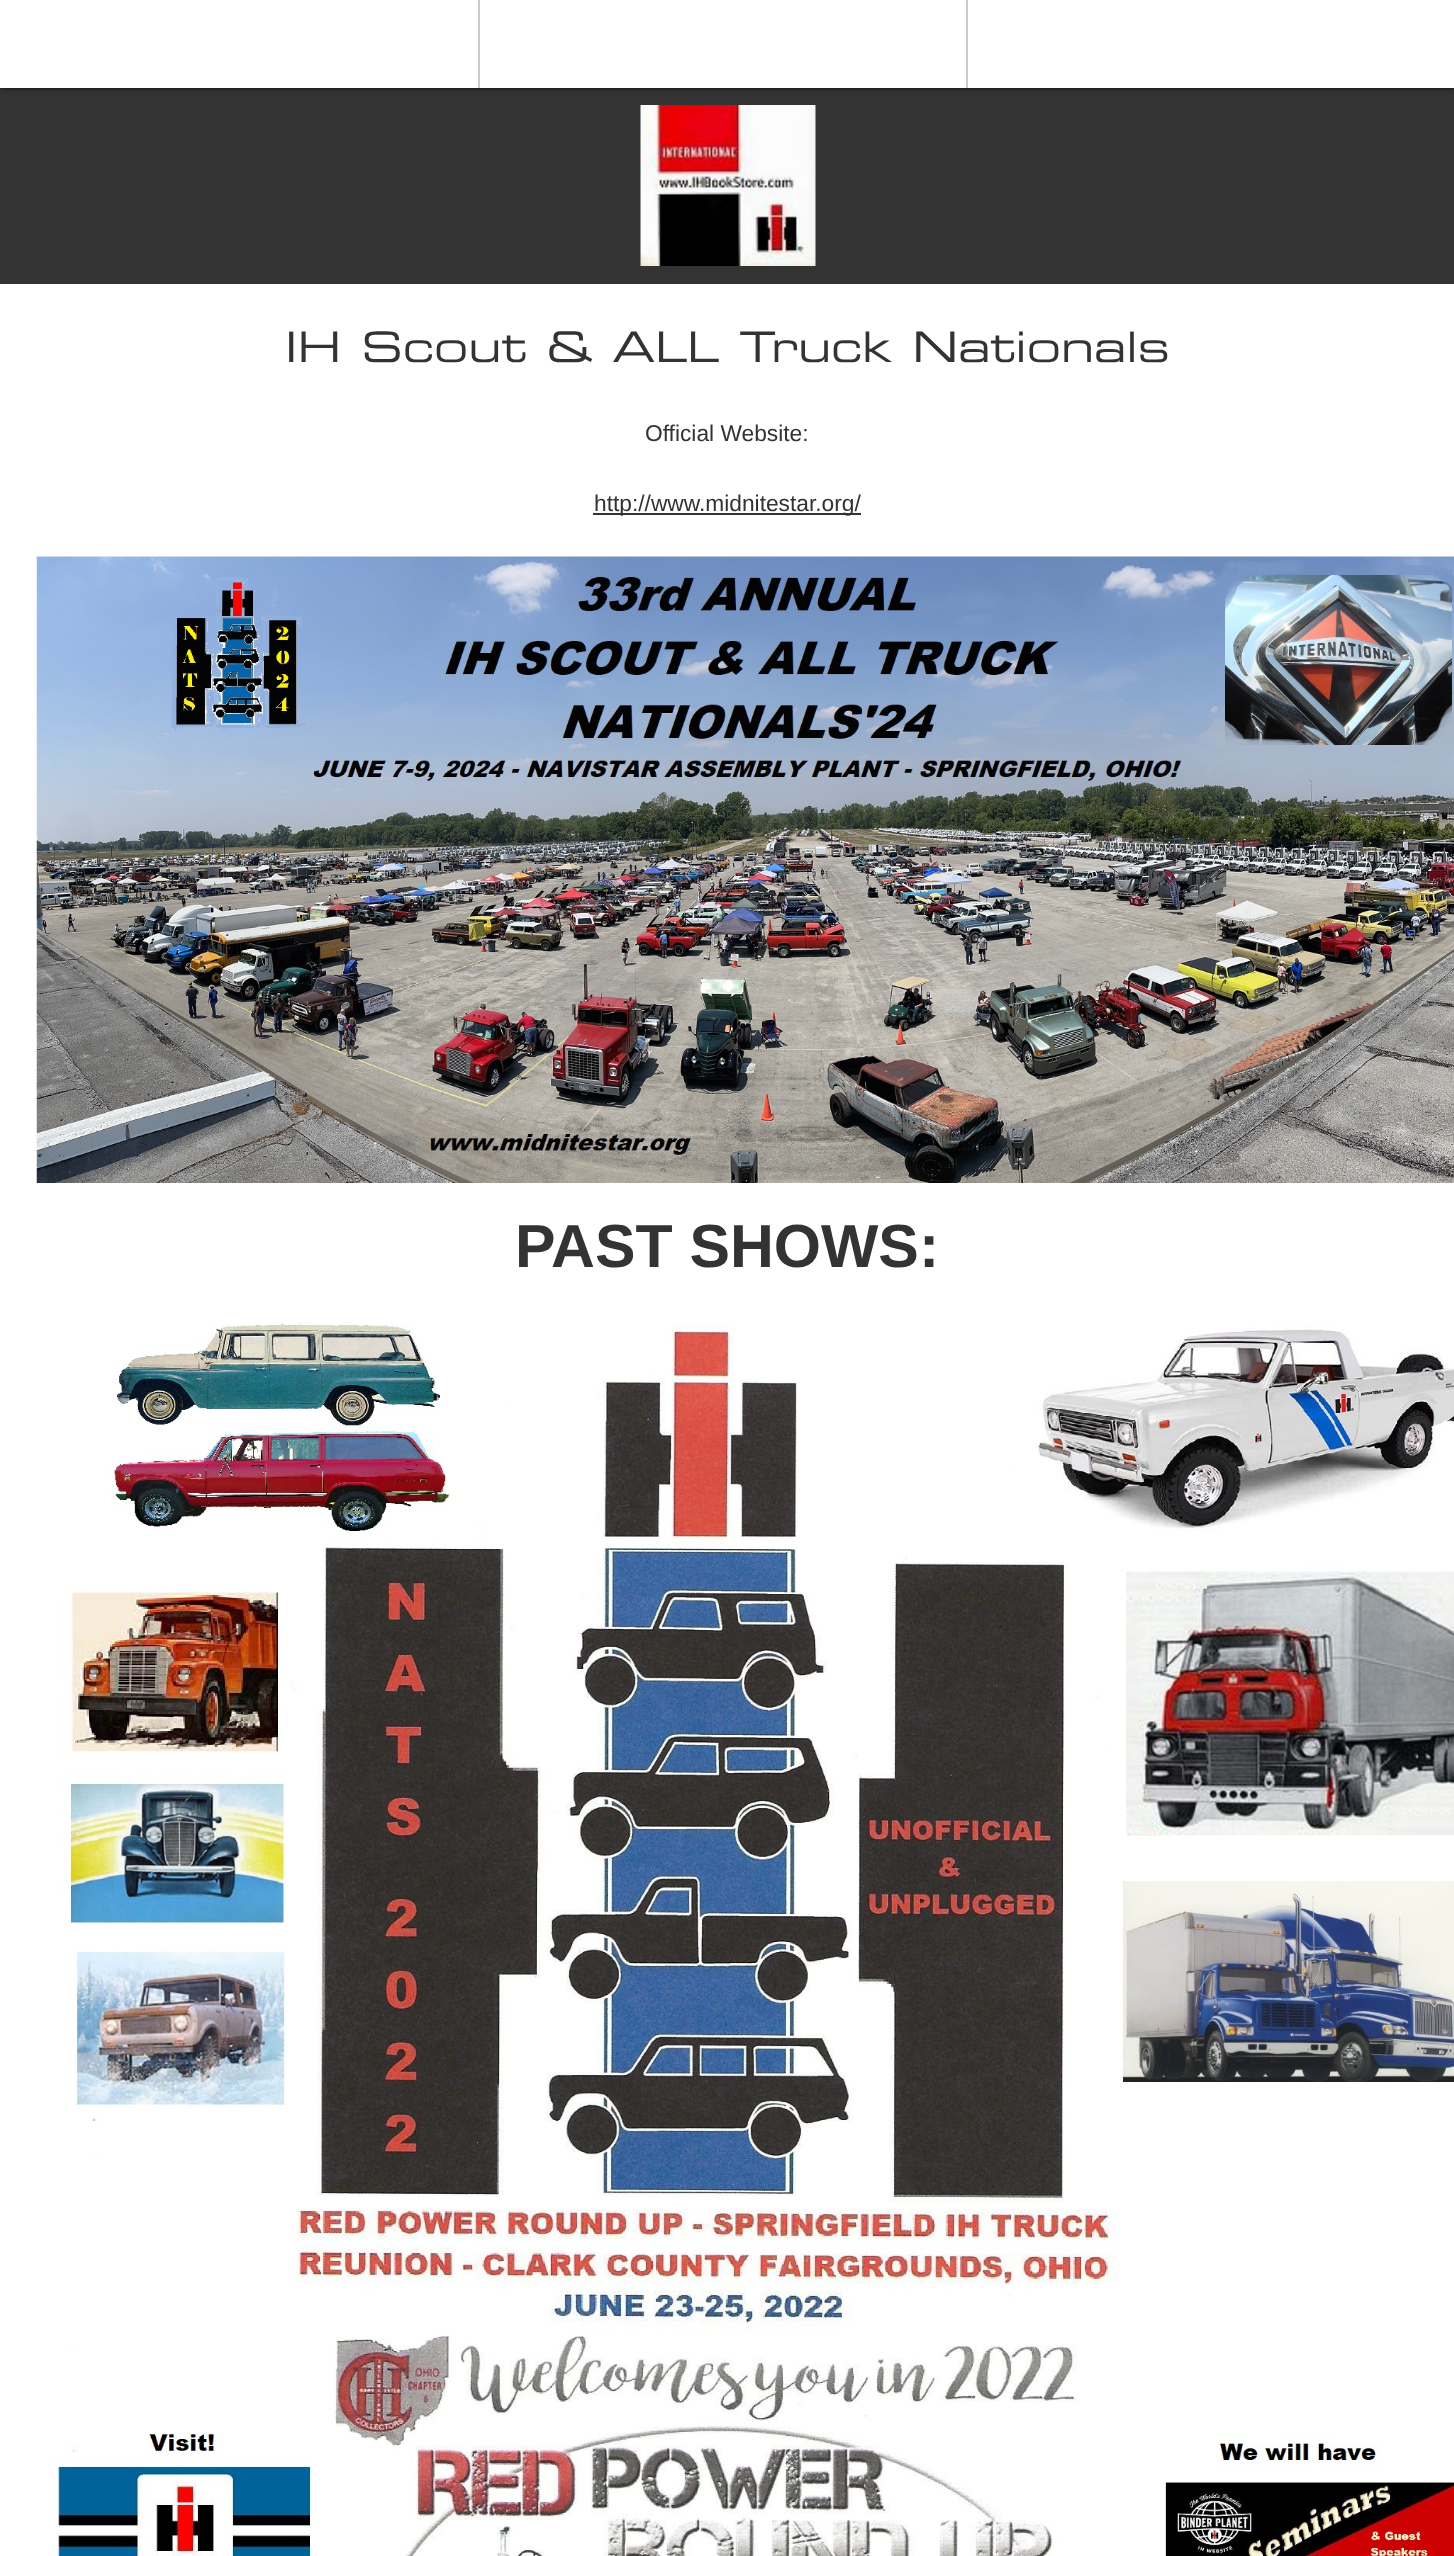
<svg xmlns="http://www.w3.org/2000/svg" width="1454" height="2556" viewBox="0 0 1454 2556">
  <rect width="100%" height="100%" fill="rgb(255,255,255)"/>
  <rect x="0" y="88" width="1454" height="196" fill="rgb(51,51,51)"/>
  <rect x="0" y="0" width="1454" height="88" fill="rgba(0,0,0,0.75)" filter="blur(2.5px)"/>
  <rect x="0" y="0" width="1454" height="88" fill="rgb(255,255,255)"/>
  <rect x="478" y="0" width="2" height="88" fill="rgb(204,204,204)"/>
  <rect x="966" y="0" width="2" height="88" fill="rgb(204,204,204)"/>
  <image x="640" y="105" width="176" height="161" href="pic1.png"/>
  <text x="285" y="362" font-family="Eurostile" font-size="42" fill="rgb(51,51,51)">IH Scout &amp; ALL Truck Nationals</text>
  <text x="645" y="441" font-family="Liberation Sans" font-size="22.75" fill="rgb(51,51,51)">Official Website:</text>
  <rect x="593" y="513" width="268" height="2" fill="rgb(51,51,51)"/>
  <text x="594" y="511" font-family="Liberation Sans" font-size="22.75" fill="rgb(51,51,51)">http://www.midnitestar.org/</text>
  <image x="36" y="556" width="1418" height="627" href="pic2.png"/>
  <text x="515" y="1267" font-family="Liberation Sans" font-size="60.75" font-weight="bold" fill="rgb(51,51,51)">PAST SHOWS:</text>
  <image x="49" y="1322" width="1405" height="1234" href="pic3.png"/>
</svg>
